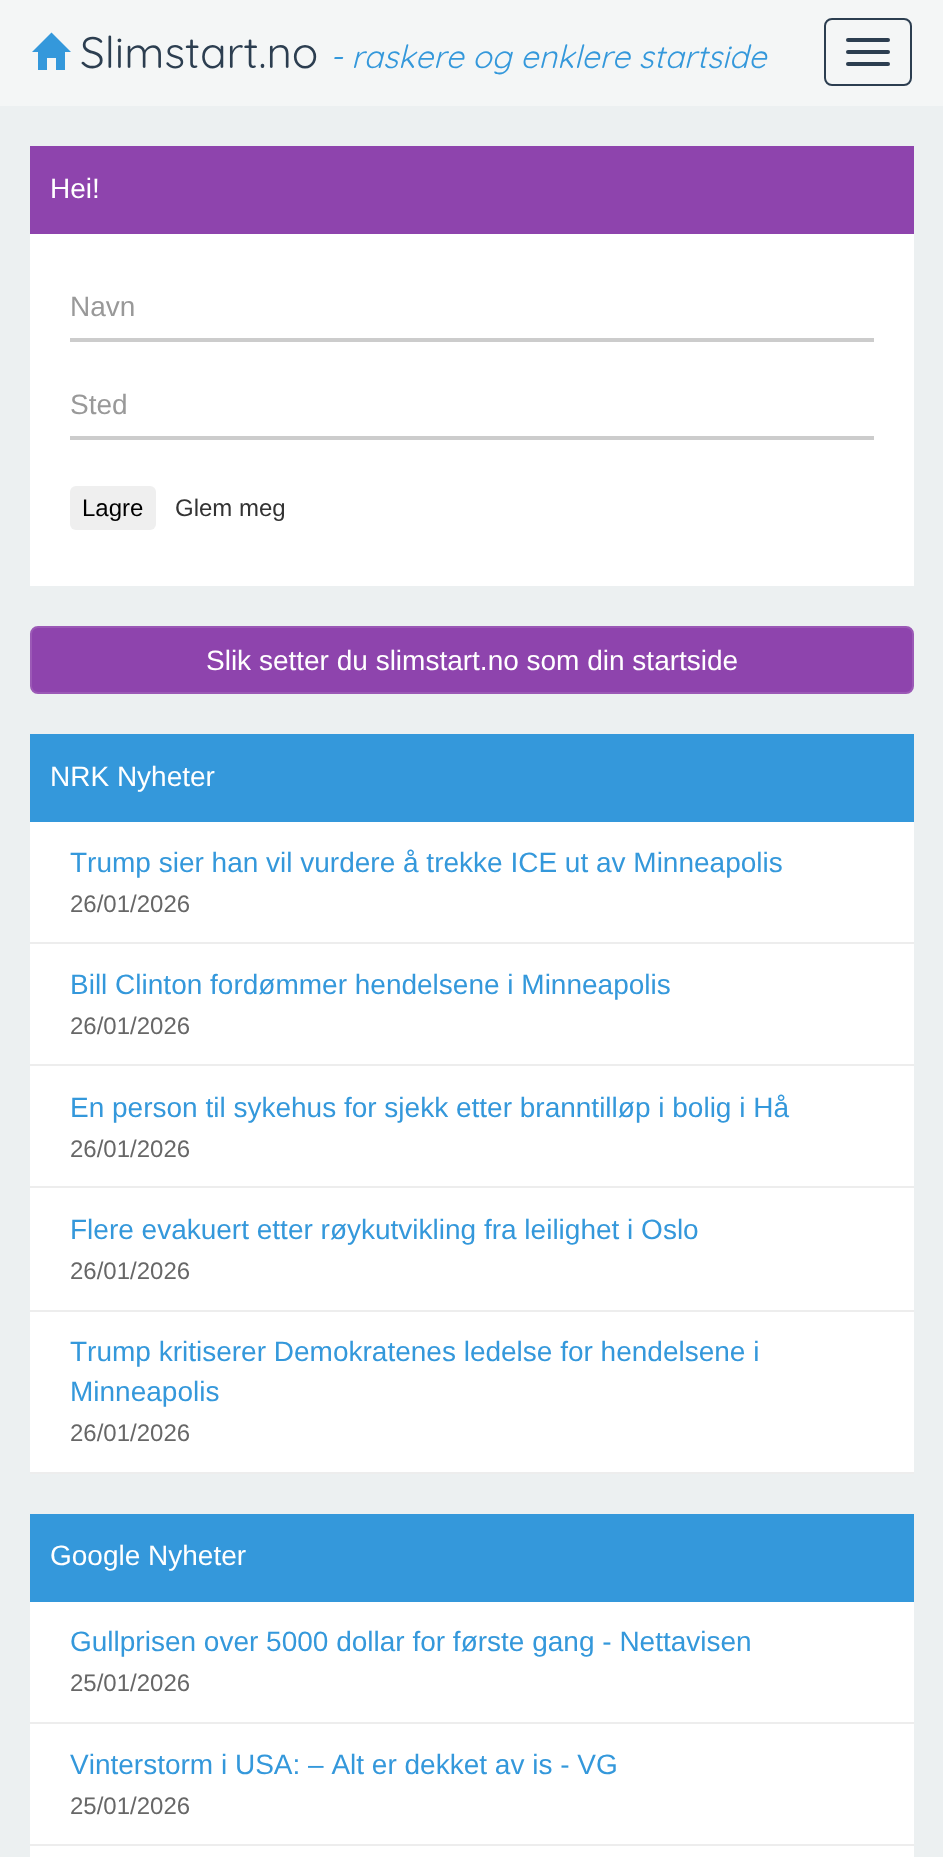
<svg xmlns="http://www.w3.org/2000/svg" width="943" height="1857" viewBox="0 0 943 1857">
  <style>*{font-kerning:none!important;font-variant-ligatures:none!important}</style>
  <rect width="100%" height="100%" fill="rgb(236,240,241)"/>
  <rect x="0" y="0" width="943" height="106" fill="rgb(244,246,246)"/>
  <path d="M32 52L51.5 32.5L71 52H65V70H56V58H47V70H38V52Z" fill="rgb(52,152,219)"/>
  <text x="80" y="68" font-family="Quicksand" font-size="44" fill="rgb(44,62,80)">Slimstart.no</text>
  <text x="330" y="68" font-family="Quicksand" font-size="32" font-style="italic" fill="rgb(52,152,219)">- raskere og enklere startside</text>
  <rect x="825" y="19" width="86" height="66" rx="7" fill="none" stroke="rgb(44,62,80)" stroke-width="2"/>
  <rect x="846" y="38" width="44" height="4" rx="2" fill="rgb(44,62,80)"/>
  <rect x="846" y="50" width="44" height="4" rx="2" fill="rgb(44,62,80)"/>
  <rect x="846" y="62" width="44" height="4" rx="2" fill="rgb(44,62,80)"/>
  <rect x="30" y="234" width="884" height="352" fill="rgb(255,255,255)"/>
  <rect x="30" y="146" width="884" height="88" fill="rgb(142,68,173)"/>
  <text x="50" y="198" font-family="Liberation Sans" font-size="28" fill="rgb(255,255,255)">Hei!</text>
  <rect x="70" y="338" width="804" height="4" fill="rgb(204,204,204)"/>
  <text x="70" y="316" font-family="Liberation Sans" font-size="28" fill="rgb(153,153,153)">Navn</text>
  <rect x="70" y="436" width="804" height="4" fill="rgb(204,204,204)"/>
  <text x="70" y="414" font-family="Liberation Sans" font-size="28" fill="rgb(153,153,153)">Sted</text>
  <rect x="70" y="486" width="86" height="44" rx="6" fill="rgb(239,239,239)"/>
  <text x="82" y="516" font-family="Liberation Sans" font-size="24" fill="rgb(0,0,0)">Lagre</text>
  <text x="175" y="516" font-family="Liberation Sans" font-size="24" fill="rgb(51,51,51)">Glem meg</text>
  <rect x="31" y="627" width="882" height="66" rx="7" fill="rgb(142,68,173)" stroke="rgb(155,89,182)" stroke-width="2"/>
  <text x="206" y="670" font-family="Liberation Sans" font-size="28" fill="rgb(255,255,255)">Slik setter du slimstart.no som din startside</text>
  <rect x="30" y="822" width="884" height="650" fill="rgb(255,255,255)"/>
  <rect x="30" y="734" width="884" height="88" fill="rgb(52,152,219)"/>
  <text x="50" y="786" font-family="Liberation Sans" font-size="28" fill="rgb(255,255,255)">NRK Nyheter</text>
  <rect x="30" y="942" width="884" height="2" fill="rgb(237,237,237)"/>
  <text x="70" y="872" font-family="Liberation Sans" font-size="28" fill="rgb(52,152,219)">Trump sier han vil vurdere å trekke ICE ut av Minneapolis</text>
  <text x="70" y="912" font-family="Liberation Sans" font-size="24" fill="rgb(103,103,103)">26/01/2026</text>
  <rect x="30" y="1064" width="884" height="2" fill="rgb(237,237,237)"/>
  <text x="70" y="994" font-family="Liberation Sans" font-size="28" fill="rgb(52,152,219)">Bill Clinton fordømmer hendelsene i Minneapolis</text>
  <text x="70" y="1034" font-family="Liberation Sans" font-size="24" fill="rgb(103,103,103)">26/01/2026</text>
  <rect x="30" y="1186" width="884" height="2" fill="rgb(237,237,237)"/>
  <text x="70" y="1117" font-family="Liberation Sans" font-size="28" fill="rgb(52,152,219)">En person til sykehus for sjekk etter branntilløp i bolig i Hå</text>
  <text x="70" y="1157" font-family="Liberation Sans" font-size="24" fill="rgb(103,103,103)">26/01/2026</text>
  <rect x="30" y="1310" width="884" height="2" fill="rgb(237,237,237)"/>
  <text x="70" y="1239" font-family="Liberation Sans" font-size="28" fill="rgb(52,152,219)">Flere evakuert etter røykutvikling fra leilighet i Oslo</text>
  <text x="70" y="1279" font-family="Liberation Sans" font-size="24" fill="rgb(103,103,103)">26/01/2026</text>
  <rect x="30" y="1472" width="884" height="2" fill="rgb(237,237,237)"/>
  <g font-family="Liberation Sans" font-size="28" fill="rgb(52,152,219)">
    <text>
      <tspan x="70" y="1361">Trump kritiserer Demokratenes ledelse for hendelsene i</tspan>
      <tspan x="70" y="1401">Minneapolis</tspan>
    </text>
  </g>
  <text x="70" y="1441" font-family="Liberation Sans" font-size="24" fill="rgb(103,103,103)">26/01/2026</text>
  <rect x="30" y="1602" width="884" height="255" fill="rgb(255,255,255)"/>
  <rect x="30" y="1514" width="884" height="88" fill="rgb(52,152,219)"/>
  <text x="50" y="1565" font-family="Liberation Sans" font-size="28" fill="rgb(255,255,255)">Google Nyheter</text>
  <rect x="30" y="1722" width="884" height="2" fill="rgb(237,237,237)"/>
  <text x="70" y="1651" font-family="Liberation Sans" font-size="28" fill="rgb(52,152,219)">Gullprisen over 5000 dollar for første gang - Nettavisen</text>
  <text x="70" y="1691" font-family="Liberation Sans" font-size="24" fill="rgb(103,103,103)">25/01/2026</text>
  <rect x="30" y="1844" width="884" height="2" fill="rgb(237,237,237)"/>
  <text x="70" y="1774" font-family="Liberation Sans" font-size="28" fill="rgb(52,152,219)">Vinterstorm i USA: – Alt er dekket av is - VG</text>
  <text x="70" y="1814" font-family="Liberation Sans" font-size="24" fill="rgb(103,103,103)">25/01/2026</text>
</svg>
